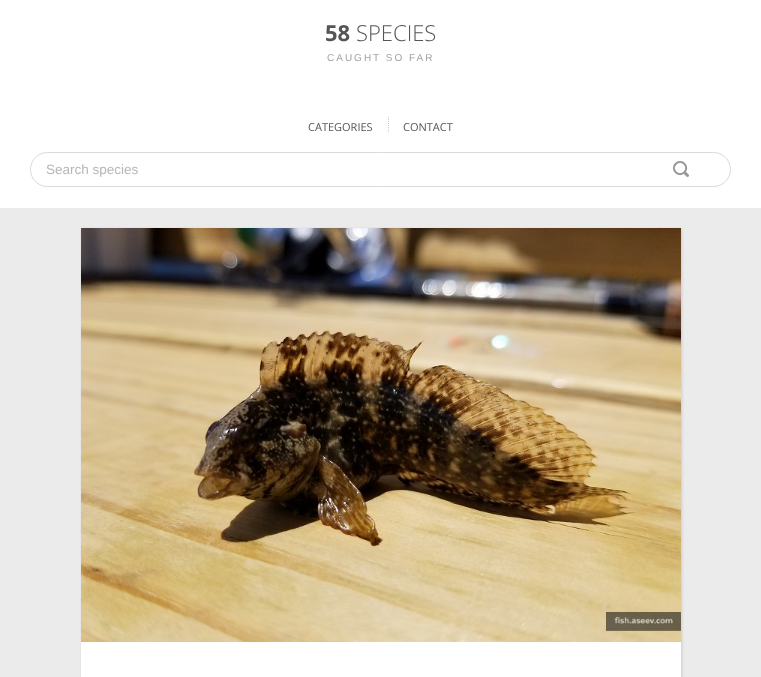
<!DOCTYPE html>
<meta charset="utf-8">
<style>body { margin: 0 } canvas { display: block }</style>
<canvas id="canvas" width="761" height="677"></canvas>
<script type="module">
  const canvas = document.getElementById("canvas");
  const ctx = canvas.getContext("2d");
  ctx.miterLimit = 4;
  ctx.fontKerning = "normal";
  async function loadImage(src) {
    const img = new Image();
    img.src = src;
    await img.decode();
    return img;
  }

  ctx.fillStyle = "#ebebeb";
  ctx.fillRect(0, 0, 761, 677);
  ctx.fillStyle = "#ffffff";
  ctx.fillRect(0, 0, 761, 208);
  ctx.font = "bold 22px Open Sans";
  ctx.fillStyle = "#555555";
  ctx.fillText("58", 325, 41);
  ctx.font = "300 22px Open Sans";
  ctx.fillText("SPECIES", 356, 41);
  ctx.letterSpacing = "2px";
  ctx.font = "10px Liberation Sans";
  ctx.fillStyle = "#a2a2a2";
  ctx.fillText("CAUGHT SO FAR", 327, 61);
  ctx.letterSpacing = "0px";
  ctx.font = "11px Open Sans";
  ctx.fillStyle = "#555555";
  ctx.fillText("CATEGORIES", 308, 131);
  ctx.beginPath();
  ctx.moveTo(388.5, 117);
  ctx.lineTo(388.5, 133);
  ctx.strokeStyle = "#cccccc";
  ctx.setLineDash([1, 1]);
  ctx.stroke();
  ctx.fillText("CONTACT", 403, 131);
  ctx.drawImage(await loadImage("img1.png"), 673, 161, 16, 16);
  ctx.beginPath();
  ctx.roundRect(30.5, 152.5, 700, 34, 17);
  ctx.strokeStyle = "#dadada";
  ctx.setLineDash([]);
  ctx.stroke();
  ctx.font = "13.5px Liberation Sans";
  ctx.fillStyle = "#b7b7b7";
  ctx.fillText("Search species", 46, 174);
  ctx.fillStyle = "#cccccc";
  ctx.filter = "blur(1.5px)";
  ctx.beginPath();
  ctx.rect(82, 229, 600, 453);
  ctx.fill();
  ctx.filter = "none";
  ctx.fillStyle = "#ffffff";
  ctx.fillRect(81, 642, 600, 35);
  ctx.drawImage(await loadImage("img2.png"), 81, 228, 600, 414);
</script>
